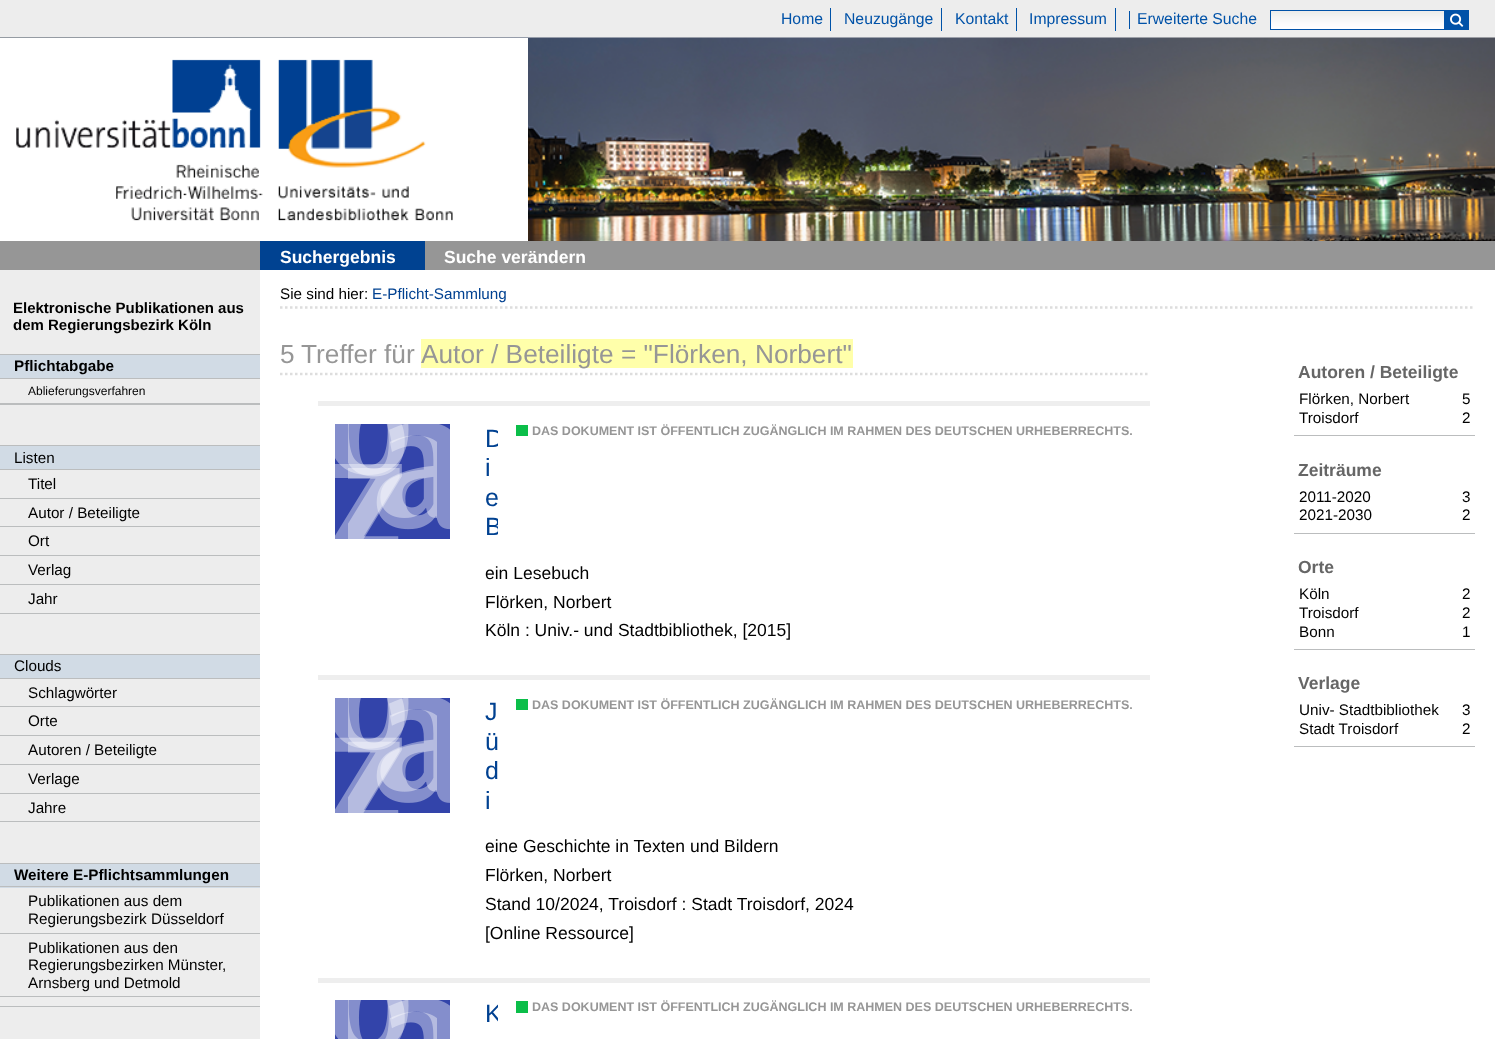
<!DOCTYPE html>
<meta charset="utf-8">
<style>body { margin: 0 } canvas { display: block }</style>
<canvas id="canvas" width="1495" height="1039"></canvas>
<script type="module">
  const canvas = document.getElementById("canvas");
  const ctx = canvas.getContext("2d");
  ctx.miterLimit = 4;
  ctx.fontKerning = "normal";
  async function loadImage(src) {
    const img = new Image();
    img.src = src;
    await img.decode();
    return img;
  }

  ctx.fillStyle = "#ffffff";
  ctx.fillRect(0, 0, 1495, 1039);
  ctx.fillStyle = "#ededed";
  ctx.fillRect(0, 0, 1495, 38);
  ctx.font = "15.75px Liberation Sans";
  ctx.fillStyle = "#0052a8";
  ctx.fillText("Home", 781, 24);
  ctx.fillRect(830, 8, 1, 23);
  ctx.fillText("Neuzugänge", 844, 24);
  ctx.fillRect(941, 8, 1, 23);
  ctx.fillText("Kontakt", 955, 24);
  ctx.fillRect(1016, 8, 1, 23);
  ctx.fillText("Impressum", 1029, 24);
  ctx.fillRect(1115, 8, 1, 23);
  ctx.fillRect(1129, 11, 1, 18);
  ctx.fillText("Erweiterte Suche", 1137, 24);
  ctx.drawImage(await loadImage("img1.png"), 1271, 11, 173, 18);
  ctx.fillRect(1270, 10, 174, 1);
  ctx.fillRect(1444, 10, 25, 19);
  ctx.fillRect(1270, 29, 199, 1);
  ctx.fillRect(1270, 10, 1, 20);
  ctx.drawImage(await loadImage("img2.png"), 1450, 13, 14, 14);
  ctx.drawImage(await loadImage("img3.png"), 0, 37, 1495, 204);
  ctx.fillStyle = "#ffffff";
  ctx.fillRect(0, 38, 528, 203);
  ctx.drawImage(await loadImage("img4.png"), 16, 59, 247, 162);
  ctx.drawImage(await loadImage("img5.png"), 278, 59, 175, 162);
  ctx.fillStyle = "#969696";
  ctx.fillRect(0, 241, 1495, 29);
  ctx.fillStyle = "#004291";
  ctx.fillRect(260, 241, 165, 29);
  ctx.font = "bold 17.5px Liberation Sans";
  ctx.fillStyle = "#ffffff";
  ctx.fillText("Suchergebnis", 280, 263);
  ctx.fillText("Suche verändern", 444, 263);
  ctx.fillStyle = "#ededed";
  ctx.fillRect(0, 270, 260, 769);
  ctx.font = "bold 15px Liberation Sans";
  ctx.fillStyle = "#000000";
  ctx.fillText("Elektronische Publikationen aus", 13, 313);
  ctx.fillText("dem Regierungsbezirk Köln", 13, 330);
  ctx.fillStyle = "#d1dbe5";
  ctx.fillRect(0, 355, 260, 23);
  ctx.fillStyle = "#bbbdbe";
  ctx.fillRect(0, 354, 260, 1);
  ctx.fillRect(0, 378, 260, 1);
  ctx.font = "bold 15.25px Liberation Sans";
  ctx.fillStyle = "#000000";
  ctx.fillText("Pflichtabgabe", 14, 371);
  ctx.fillStyle = "#bbbdbe";
  ctx.fillRect(0, 403, 260, 2);
  ctx.font = "12px Liberation Sans";
  ctx.fillStyle = "#000000";
  ctx.fillText("Ablieferungsverfahren", 28, 395);
  ctx.fillStyle = "#d1dbe5";
  ctx.fillRect(0, 446, 260, 23);
  ctx.fillStyle = "#bbbdbe";
  ctx.fillRect(0, 445, 260, 1);
  ctx.fillRect(0, 469, 260, 1);
  ctx.font = "15.25px Liberation Sans";
  ctx.fillStyle = "#000000";
  ctx.fillText("Listen", 14, 463);
  ctx.fillStyle = "#bbbdbe";
  ctx.fillRect(0, 498, 260, 1);
  ctx.fillStyle = "#000000";
  ctx.fillText("Titel", 28, 489);
  ctx.fillStyle = "#bbbdbe";
  ctx.fillRect(0, 526, 260, 1);
  ctx.fillStyle = "#000000";
  ctx.fillText("Autor / Beteiligte", 28, 518);
  ctx.fillStyle = "#bbbdbe";
  ctx.fillRect(0, 555, 260, 1);
  ctx.fillStyle = "#000000";
  ctx.fillText("Ort", 28, 546);
  ctx.fillStyle = "#bbbdbe";
  ctx.fillRect(0, 584, 260, 1);
  ctx.fillStyle = "#000000";
  ctx.fillText("Verlag", 28, 575);
  ctx.fillStyle = "#bbbdbe";
  ctx.fillRect(0, 613, 260, 1);
  ctx.fillStyle = "#000000";
  ctx.fillText("Jahr", 28, 604);
  ctx.fillStyle = "#d1dbe5";
  ctx.fillRect(0, 655, 260, 23);
  ctx.fillStyle = "#bbbdbe";
  ctx.fillRect(0, 654, 260, 1);
  ctx.fillRect(0, 678, 260, 1);
  ctx.fillStyle = "#000000";
  ctx.fillText("Clouds", 14, 671);
  ctx.fillStyle = "#bbbdbe";
  ctx.fillRect(0, 706, 260, 1);
  ctx.fillStyle = "#000000";
  ctx.fillText("Schlagwörter", 28, 698);
  ctx.fillStyle = "#bbbdbe";
  ctx.fillRect(0, 735, 260, 1);
  ctx.fillStyle = "#000000";
  ctx.fillText("Orte", 28, 726);
  ctx.fillStyle = "#bbbdbe";
  ctx.fillRect(0, 764, 260, 1);
  ctx.fillStyle = "#000000";
  ctx.fillText("Autoren / Beteiligte", 28, 755);
  ctx.fillStyle = "#bbbdbe";
  ctx.fillRect(0, 793, 260, 1);
  ctx.fillStyle = "#000000";
  ctx.fillText("Verlage", 28, 784);
  ctx.fillStyle = "#bbbdbe";
  ctx.fillRect(0, 821, 260, 1);
  ctx.fillStyle = "#000000";
  ctx.fillText("Jahre", 28, 813);
  ctx.fillStyle = "#d1dbe5";
  ctx.fillRect(0, 864, 260, 24);
  ctx.fillStyle = "#bbbdbe";
  ctx.fillRect(0, 863, 260, 1);
  ctx.fillRect(0, 886, 260, 1);
  ctx.font = "bold 15.25px Liberation Sans";
  ctx.fillStyle = "#000000";
  ctx.fillText("Weitere E-Pflichtsammlungen", 14, 880);
  ctx.fillStyle = "#bbbdbe";
  ctx.fillRect(0, 1006, 260, 1);
  ctx.fillRect(0, 933, 260, 1);
  ctx.font = "15.25px Liberation Sans";
  ctx.fillStyle = "#000000";
  ctx.fillText("Publikationen aus dem", 28, 906);
  ctx.fillText("Regierungsbezirk Düsseldorf", 28, 924);
  ctx.fillStyle = "#bbbdbe";
  ctx.fillRect(0, 996, 260, 1);
  ctx.fillStyle = "#000000";
  ctx.fillText("Publikationen aus den", 28, 953);
  ctx.fillText("Regierungsbezirken Münster,", 28, 970);
  ctx.fillText("Arnsberg und Detmold", 28, 988);
  ctx.beginPath();
  ctx.moveTo(280, 307.5);
  ctx.lineTo(1475, 307.5);
  ctx.strokeStyle = "#dddddd";
  ctx.lineWidth = 2.5;
  ctx.setLineDash([2.5, 2.5]);
  ctx.stroke();
  ctx.fillText("Sie sind hier:", 280, 299);
  ctx.fillStyle = "#004191";
  ctx.fillText("E-Pflicht-Sammlung", 372, 299);
  ctx.beginPath();
  ctx.moveTo(280, 374);
  ctx.lineTo(1150, 374);
  ctx.stroke();
  ctx.font = "26.25px Liberation Sans";
  ctx.fillStyle = "#969696";
  ctx.fillText("5", 280, 363);
  ctx.fillText("Treffer", 301, 363);
  ctx.fillText("für", 384, 363);
  ctx.fillStyle = "#ffffaa";
  ctx.fillRect(421, 339, 432, 29);
  ctx.fillStyle = "#969696";
  ctx.fillText("Autor / Beteiligte = \"Flörken, Norbert\"", 421, 363);
  ctx.fillStyle = "#eeeeee";
  ctx.fillRect(318, 401, 832, 5);
  ctx.fillStyle = "#3344aa";
  ctx.fillRect(335, 424, 115, 115);
  ctx.drawImage(await loadImage("img6.png"), 335, 424, 115, 115);
  ctx.drawImage(await loadImage("img7.png"), 348, 424, 89, 115);
  ctx.fillStyle = "#0bbe49";
  ctx.fillRect(516, 425, 12, 11);
  ctx.font = "bold 12.5px Liberation Sans";
  ctx.fillStyle = "#969696";
  ctx.fillText("DAS DOKUMENT IST ÖFFENTLICH ZUGÄNGLICH IM RAHMEN DES DEUTSCHEN URHEBERRECHTS.", 532, 435);
  ctx.save();
  ctx.beginPath();
  ctx.rect(485, 424, 13, 119);
  ctx.clip();
  ctx.font = "25px Liberation Sans";
  ctx.fillStyle = "#004191";
  ctx.fillText("D", 485, 447);
  ctx.restore();
  ctx.font = "25px Liberation Sans";
  ctx.fillStyle = "#004191";
  ctx.fillText("i", 485, 476);
  ctx.fillText("e", 485, 506);
  ctx.save();
  ctx.beginPath();
  ctx.rect(485, 424, 13, 119);
  ctx.clip();
  ctx.fillText("B", 485, 535);
  ctx.restore();
  ctx.font = "17.5px Liberation Sans";
  ctx.fillStyle = "#000000";
  ctx.fillText("ein Lesebuch", 485, 579);
  ctx.fillText("Flörken, Norbert", 485, 608);
  ctx.fillText("Köln : Univ.- und Stadtbibliothek, [2015]", 485, 636);
  ctx.fillStyle = "#eeeeee";
  ctx.fillRect(318, 675, 832, 5);
  ctx.fillStyle = "#3344aa";
  ctx.fillRect(335, 698, 115, 115);
  ctx.drawImage(await loadImage("img8.png"), 335, 698, 115, 115);
  ctx.drawImage(await loadImage("img9.png"), 348, 698, 89, 115);
  ctx.fillStyle = "#0bbe49";
  ctx.fillRect(516, 699, 12, 11);
  ctx.font = "bold 12.5px Liberation Sans";
  ctx.fillStyle = "#969696";
  ctx.fillText("DAS DOKUMENT IST ÖFFENTLICH ZUGÄNGLICH IM RAHMEN DES DEUTSCHEN URHEBERRECHTS.", 532, 709);
  ctx.font = "25px Liberation Sans";
  ctx.fillStyle = "#004191";
  ctx.fillText("J", 485, 720);
  ctx.fillText("ü", 485, 750);
  ctx.fillText("d", 485, 779);
  ctx.fillText("i", 485, 809);
  ctx.font = "17.5px Liberation Sans";
  ctx.fillStyle = "#000000";
  ctx.fillText("eine Geschichte in Texten und Bildern", 485, 852);
  ctx.fillText("Flörken, Norbert", 485, 881);
  ctx.fillText("Stand 10/2024, Troisdorf : Stadt Troisdorf, 2024", 485, 910);
  ctx.fillText("[Online Ressource]", 485, 939);
  ctx.fillStyle = "#eeeeee";
  ctx.fillRect(318, 978, 832, 5);
  ctx.fillStyle = "#3344aa";
  ctx.fillRect(335, 1000, 115, 39);
  ctx.drawImage(await loadImage("img10.png"), 335, 1000, 115, 39);
  ctx.drawImage(await loadImage("img11.png"), 348, 1000, 89, 39);
  ctx.save();
  ctx.beginPath();
  ctx.rect(485, 1000, 13, 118);
  ctx.clip();
  ctx.font = "25px Liberation Sans";
  ctx.fillStyle = "#004191";
  ctx.fillText("K", 485, 1022);
  ctx.restore();
  ctx.fillStyle = "#0bbe49";
  ctx.fillRect(516, 1001, 12, 12);
  ctx.font = "bold 12.5px Liberation Sans";
  ctx.fillStyle = "#969696";
  ctx.fillText("DAS DOKUMENT IST ÖFFENTLICH ZUGÄNGLICH IM RAHMEN DES DEUTSCHEN URHEBERRECHTS.", 532, 1011);
  ctx.font = "bold 17.5px Liberation Sans";
  ctx.fillStyle = "#666666";
  ctx.fillText("Autoren / Beteiligte", 1298, 378);
  ctx.fillStyle = "#bbbdbe";
  ctx.fillRect(1294, 435, 181, 1);
  ctx.font = "15.25px Liberation Sans";
  ctx.fillStyle = "#000000";
  ctx.fillText("Flörken, Norbert", 1299, 404);
  ctx.fillText("5", 1462, 404);
  ctx.fillText("Troisdorf", 1299, 423);
  ctx.fillText("2", 1462, 423);
  ctx.font = "bold 17.5px Liberation Sans";
  ctx.fillStyle = "#666666";
  ctx.fillText("Zeiträume", 1298, 476);
  ctx.fillStyle = "#bbbdbe";
  ctx.fillRect(1294, 533, 181, 1);
  ctx.font = "15.25px Liberation Sans";
  ctx.fillStyle = "#000000";
  ctx.fillText("2011-2020", 1299, 502);
  ctx.fillText("3", 1462, 502);
  ctx.fillText("2021-2030", 1299, 520);
  ctx.fillText("2", 1462, 520);
  ctx.font = "bold 17.5px Liberation Sans";
  ctx.fillStyle = "#666666";
  ctx.fillText("Orte", 1298, 573);
  ctx.fillStyle = "#bbbdbe";
  ctx.fillRect(1294, 649, 181, 1);
  ctx.font = "15.25px Liberation Sans";
  ctx.fillStyle = "#000000";
  ctx.fillText("Köln", 1299, 599);
  ctx.fillText("2", 1462, 599);
  ctx.fillText("Troisdorf", 1299, 618);
  ctx.fillText("2", 1462, 618);
  ctx.fillText("Bonn", 1299, 637);
  ctx.fillText("1", 1462, 637);
  ctx.font = "bold 17.5px Liberation Sans";
  ctx.fillStyle = "#666666";
  ctx.fillText("Verlage", 1298, 689);
  ctx.fillStyle = "#bbbdbe";
  ctx.fillRect(1294, 746, 181, 1);
  ctx.font = "15.25px Liberation Sans";
  ctx.fillStyle = "#000000";
  ctx.fillText("Univ- Stadtbibliothek", 1299, 715);
  ctx.fillText("3", 1462, 715);
  ctx.fillText("Stadt Troisdorf", 1299, 734);
  ctx.fillText("2", 1462, 734);
</script>
